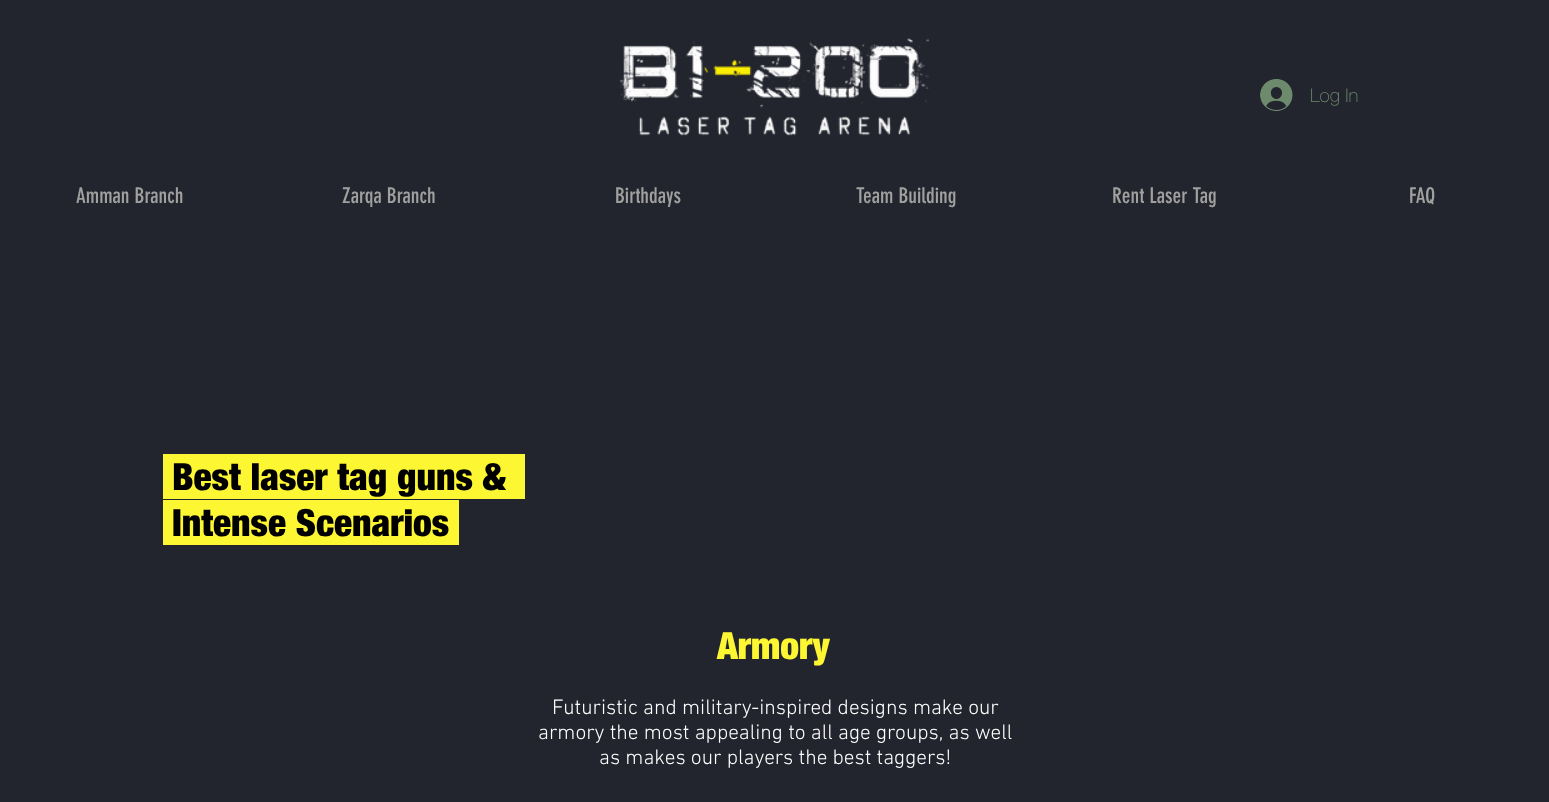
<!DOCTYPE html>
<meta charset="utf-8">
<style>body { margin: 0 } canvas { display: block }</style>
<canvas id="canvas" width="1549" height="802"></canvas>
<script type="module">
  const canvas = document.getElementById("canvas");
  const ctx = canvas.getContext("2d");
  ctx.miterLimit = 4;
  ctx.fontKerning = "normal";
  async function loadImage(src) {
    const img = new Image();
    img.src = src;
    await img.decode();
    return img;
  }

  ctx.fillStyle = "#23252e";
  ctx.fillRect(0, 0, 1549, 802);
  ctx.drawImage(await loadImage("img1.png"), 620, 38, 309, 98);
  ctx.drawImage(await loadImage("img2.png"), 1260, 79, 33, 32);
  ctx.font = "100 19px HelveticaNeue";
  ctx.fillStyle = "#6d8b6c";
  ctx.fillText("Log In", 1310, 102);
  ctx.font = "21.25px 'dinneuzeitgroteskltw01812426'";
  ctx.fillStyle = "#a0a09f";
  ctx.fillText("Amman Branch", 76, 203);
  ctx.fillText("Zarqa Branch", 342, 203);
  ctx.fillText("Birthdays", 615, 203);
  ctx.fillText("Team Building", 856, 203);
  ctx.fillText("Rent Laser Tag", 1112, 203);
  ctx.fillText("FAQ", 1409, 203);
  ctx.fillStyle = "#fdf733";
  ctx.fillRect(163, 454, 362, 45);
  ctx.font = "900 37.5px Helvetica Neue";
  ctx.fillStyle = "#000000";
  ctx.fillText("Best laser tag guns &", 172, 490);
  ctx.fillStyle = "#fdf733";
  ctx.fillRect(163, 500, 296, 45);
  ctx.fillStyle = "#000000";
  ctx.fillText("Intense Scenarios", 172, 536);
  ctx.fillStyle = "#fdf733";
  ctx.fillText("Armory", 717, 659);
  ctx.font = "300 21.25px 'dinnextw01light'";
  ctx.fillStyle = "#ffffff";
  ctx.fillText("Futuristic and military-inspired designs make our", 552, 714);
  ctx.fillText("armory the most appealing to all age groups, as well", 538, 739);
  ctx.fillText("as makes our players the best taggers!", 599, 764);
</script>
